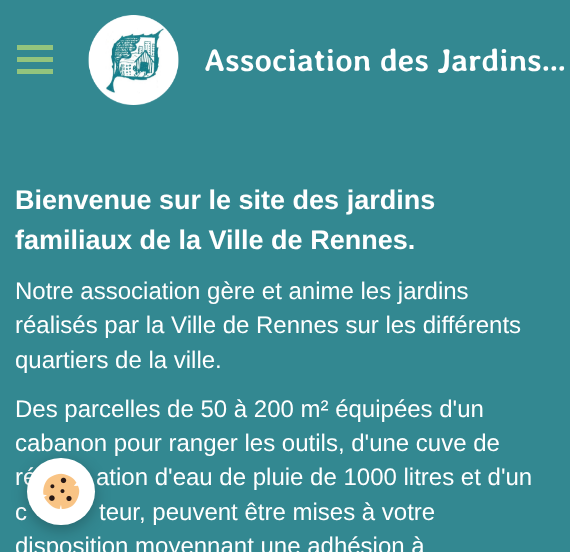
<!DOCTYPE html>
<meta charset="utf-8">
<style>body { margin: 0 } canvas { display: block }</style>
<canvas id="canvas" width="570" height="552"></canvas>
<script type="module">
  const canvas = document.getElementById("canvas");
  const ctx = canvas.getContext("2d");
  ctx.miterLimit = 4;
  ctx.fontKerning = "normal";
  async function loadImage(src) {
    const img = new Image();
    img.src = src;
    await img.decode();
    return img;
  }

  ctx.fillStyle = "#338891";
  ctx.fillRect(0, 0, 570, 552);
  ctx.fillStyle = "#93c47d";
  ctx.fillRect(17, 57, 36, 5);
  ctx.fillRect(17, 45, 36, 5);
  ctx.fillRect(17, 69, 36, 5);
  ctx.drawImage(await loadImage("img1.png"), 88, 15, 91, 90);
  ctx.font = "bold 31.5px Averia Libre";
  ctx.fillStyle = "#ffffff";
  ctx.fillText("Association des Jardins…", 204, 71);
  ctx.font = "bold 27px Liberation Sans";
  ctx.fillText("Bienvenue sur le site des jardins", 15, 209);
  ctx.fillText("familiaux de la Ville de Rennes.", 15, 249);
  ctx.font = "24px Liberation Sans";
  ctx.fillText("Notre association gère et anime les jardins", 15, 299);
  ctx.fillText("réalisés par la Ville de Rennes sur les différents", 15, 333);
  ctx.fillText("quartiers de la ville.", 15, 368);
  ctx.fillText("Des parcelles de 50 à 200 m² équipées d'un", 15, 417);
  ctx.fillText("cabanon pour ranger les outils, d'une cuve de", 15, 451);
  ctx.fillText("ré", 15, 485);
  ctx.fillText("ation d'eau de pluie de 1000 litres et d'un", 96, 485);
  ctx.fillText("c", 15, 520);
  ctx.fillText("teur, peuvent être mises à votre", 99, 520);
  ctx.fillText("disposition moyennant une adhésion à", 15, 554);
  ctx.fillStyle = "rgba(0, 0, 0, 0.24)";
  ctx.filter = "blur(7.5px)";
  ctx.beginPath();
  ctx.roundRect(27, 462, 68, 68, 34);
  ctx.fill();
  ctx.filter = "none";
  ctx.fillStyle = "#ffffff";
  ctx.beginPath();
  ctx.roundRect(27, 458, 68, 67, 33.5);
  ctx.fill();
  ctx.drawImage(await loadImage("img2.png"), 43, 473, 37, 36);
</script>
